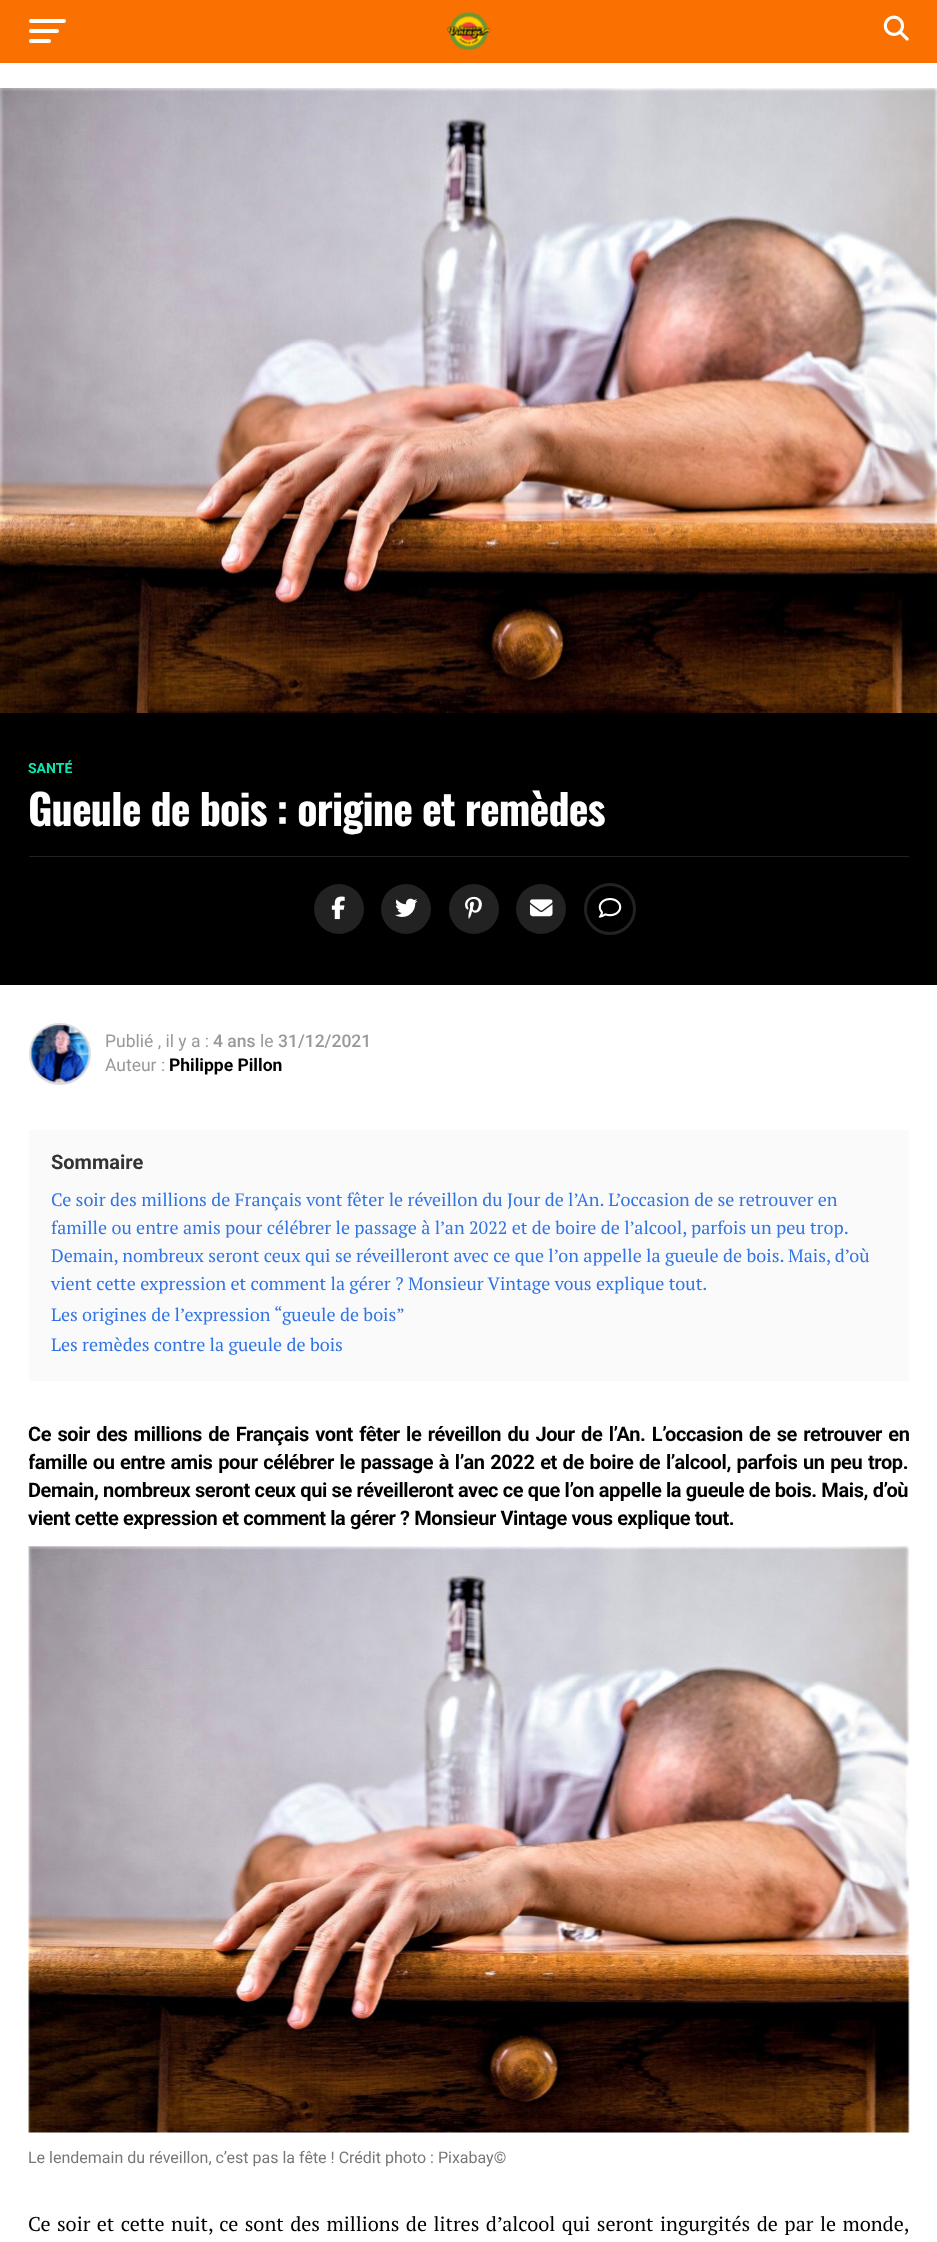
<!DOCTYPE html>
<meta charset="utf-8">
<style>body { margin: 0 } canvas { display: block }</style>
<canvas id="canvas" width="937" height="2242"></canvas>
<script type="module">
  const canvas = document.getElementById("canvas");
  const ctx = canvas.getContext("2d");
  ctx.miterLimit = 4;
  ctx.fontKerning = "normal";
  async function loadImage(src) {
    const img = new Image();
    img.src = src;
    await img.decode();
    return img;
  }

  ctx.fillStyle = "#ffffff";
  ctx.fillRect(0, 0, 937, 2242);
  ctx.fillStyle = "#fa7101";
  ctx.fillRect(0, 0, 937, 63);
  ctx.fillStyle = "#ffffff";
  ctx.beginPath();
  ctx.roundRect(29, 19, 37, 4, 2);
  ctx.fill();
  ctx.beginPath();
  ctx.roundRect(29, 29, 30, 4, 2);
  ctx.fill();
  ctx.beginPath();
  ctx.roundRect(29, 39, 22, 4, 2);
  ctx.fill();
  ctx.drawImage(await loadImage("img1.png"), 447, 12, 44, 38);
  ctx.drawImage(await loadImage("img2.png"), 883, 15, 26, 26);
  ctx.fillStyle = "#000000";
  ctx.fillRect(0, 713, 937, 272);
  ctx.drawImage(await loadImage("img3.png"), 0, 88, 937, 625);
  ctx.font = "bold 14px Roboto";
  ctx.fillStyle = "#0be6af";
  ctx.fillText("SANTÉ", 28, 773);
  ctx.letterSpacing = "-0.85px";
  ctx.font = "bold 42px Oswald";
  ctx.fillStyle = "#ffffff";
  ctx.fillText("Gueule de bois : origine et remèdes", 28, 826);
  ctx.fillStyle = "#222222";
  ctx.fillRect(29, 856, 880, 1);
  ctx.beginPath();
  ctx.arc(339, 909, 25, 0, Math.PI * 2);
  ctx.fill();
  ctx.drawImage(await loadImage("img4.png"), 331, 896, 14, 24);
  ctx.beginPath();
  ctx.arc(406, 909, 25, 0, Math.PI * 2);
  ctx.fill();
  ctx.drawImage(await loadImage("img5.png"), 395, 898, 23, 19);
  ctx.beginPath();
  ctx.arc(474, 909, 25, 0, Math.PI * 2);
  ctx.fill();
  ctx.drawImage(await loadImage("img6.png"), 465, 896, 17, 23);
  ctx.beginPath();
  ctx.arc(541, 909, 25, 0, Math.PI * 2);
  ctx.fill();
  ctx.drawImage(await loadImage("img7.png"), 530, 899, 23, 18);
  ctx.beginPath();
  ctx.arc(610, 909, 24.5, 0, Math.PI * 2);
  ctx.strokeStyle = "#222222";
  ctx.lineWidth = 3;
  ctx.stroke();
  ctx.drawImage(await loadImage("img8.png"), 598, 898, 24, 20);
  ctx.beginPath();
  ctx.arc(60, 1054, 29.5, 0, Math.PI * 2);
  ctx.strokeStyle = "#dddddd";
  ctx.stroke();
  ctx.drawImage(await loadImage("img9.png"), 30, 1024, 59, 59);
  ctx.letterSpacing = "0px";
  ctx.font = "17.5px Roboto";
  ctx.fillStyle = "#999999";
  ctx.fillText("Publié , il y a :", 105, 1047);
  ctx.font = "500 17.5px Roboto";
  ctx.fillText("4 ans", 213, 1047);
  ctx.font = "17.5px Roboto";
  ctx.fillText("le", 260, 1047);
  ctx.font = "500 17.5px Roboto";
  ctx.fillText("31/12/2021", 278, 1047);
  ctx.font = "17.5px Roboto";
  ctx.fillText("Auteur :", 105, 1071);
  ctx.font = "bold 17.5px Roboto";
  ctx.fillStyle = "#000000";
  ctx.fillText("Philippe Pillon", 169, 1071);
  ctx.fillStyle = "#fafafa";
  ctx.fillRect(29, 1130, 880, 251);
  ctx.font = "bold 20px Roboto";
  ctx.fillStyle = "#333333";
  ctx.fillText("Sommaire", 51, 1169);
  ctx.font = "18px PT Serif";
  ctx.fillStyle = "#3175e4";
  ctx.fillText("Ce soir des millions de Français vont fêter le réveillon du Jour de l’An. L’occasion de se retrouver en", 51, 1206);
  ctx.fillText("famille ou entre amis pour célébrer le passage à l’an 2022 et de boire de l’alcool, parfois un peu trop.", 51, 1234);
  ctx.fillText("Demain, nombreux seront ceux qui se réveilleront avec ce que l’on appelle la gueule de bois. Mais, d’où", 51, 1262);
  ctx.fillText("vient cette expression et comment la gérer ? Monsieur Vintage vous explique tout.", 51, 1290);
  ctx.fillText("Les origines de l’expression “gueule de bois”", 51, 1321);
  ctx.fillText("Les remèdes contre la gueule de bois", 51, 1351);
  ctx.letterSpacing = "-0.4px";
  ctx.wordSpacing = "1.75px";
  ctx.font = "bold 20px Roboto";
  ctx.fillStyle = "#000000";
  ctx.fillText("Ce soir des millions de Français vont fêter le réveillon du Jour de l’An. L’occasion de se retrouver en", 28, 1441);
  ctx.save();
  ctx.beginPath();
  ctx.rect(29, 1421, 880, 113);
  ctx.clip();
  ctx.wordSpacing = "1.1px";
  ctx.fillText("famille ou entre amis pour célébrer le passage à l’an 2022 et de boire de l’alcool, parfois un peu trop.", 28, 1469);
  ctx.restore();
  ctx.wordSpacing = "0.1px";
  ctx.fillText("Demain, nombreux seront ceux qui se réveilleront avec ce que l’on appelle la gueule de bois. Mais, d’où", 28, 1497);
  ctx.wordSpacing = "0px";
  ctx.fillText("vient cette expression et comment la gérer ? Monsieur Vintage vous explique tout.", 28, 1525);
  ctx.drawImage(await loadImage("img10.png"), 28, 1546, 882, 587);
  ctx.letterSpacing = "0px";
  ctx.font = "16px Roboto";
  ctx.fillStyle = "#777777";
  ctx.fillText("Le lendemain du réveillon, c’est pas la fête ! Crédit photo : Pixabay©", 28, 2163);
  ctx.wordSpacing = "1.6px";
  ctx.font = "20px PT Serif";
  ctx.fillStyle = "#000000";
  ctx.fillText("Ce soir et cette nuit, ce sont des millions de litres d’alcool qui seront ingurgités de par le monde,", 28, 2231);
</script>
